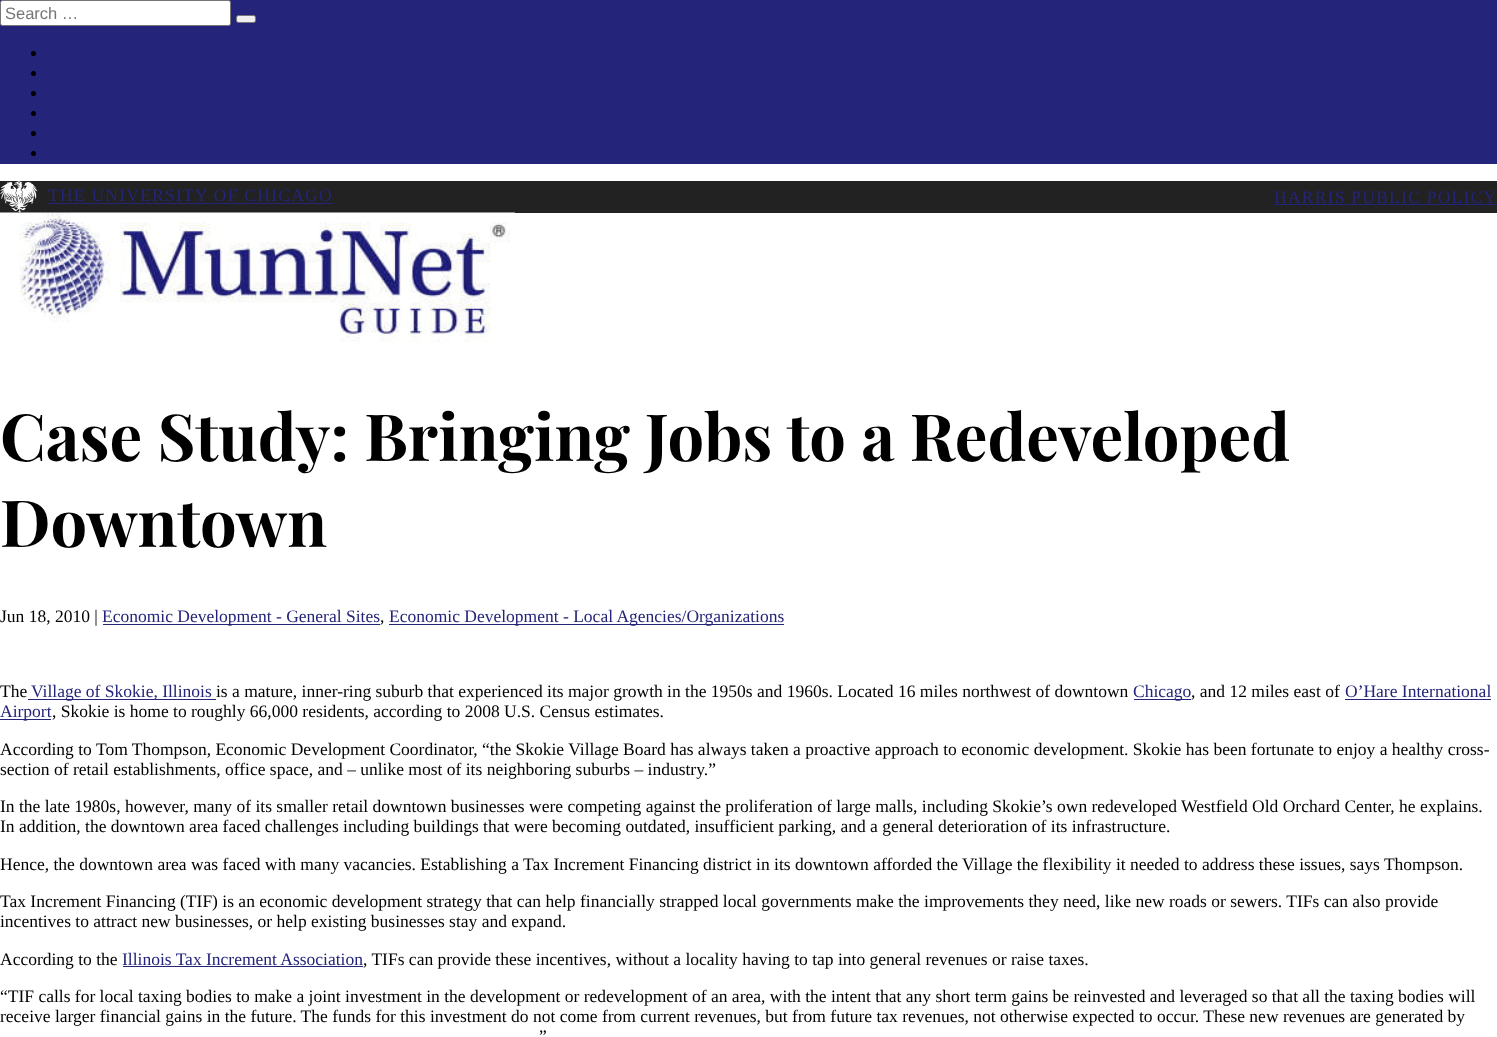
<!DOCTYPE html>
<meta charset="utf-8">
<style>body { margin: 0 } canvas { display: block }</style>
<canvas id="canvas" width="1497" height="1037"></canvas>
<script type="module">
  const canvas = document.getElementById("canvas");
  const ctx = canvas.getContext("2d");
  ctx.miterLimit = 4;
  ctx.fontKerning = "normal";
  async function loadImage(src) {
    const img = new Image();
    img.src = src;
    await img.decode();
    return img;
  }

  ctx.fillStyle = "#ffffff";
  ctx.fillRect(0, 0, 1497, 1037);
  ctx.fillStyle = "#24247a";
  ctx.fillRect(0, 0, 1497, 164);
  ctx.fillStyle = "#ffffff";
  ctx.beginPath();
  ctx.roundRect(0.5, 0.5, 230, 25, 2);
  ctx.fill();
  ctx.strokeStyle = "#767676";
  ctx.stroke();
  ctx.font = "16.5px Liberation Sans";
  ctx.fillStyle = "#757575";
  ctx.fillText("Search …", 5, 19);
  ctx.fillStyle = "#efefef";
  ctx.beginPath();
  ctx.roundRect(236.5, 15.5, 19, 7, 2);
  ctx.fill();
  ctx.stroke();
  ctx.fillStyle = "#000000";
  ctx.beginPath();
  ctx.arc(33.5, 53.5, 2.5, 0, Math.PI * 2);
  ctx.fill();
  ctx.beginPath();
  ctx.arc(33.5, 73.5, 2.5, 0, Math.PI * 2);
  ctx.fill();
  ctx.beginPath();
  ctx.arc(33.5, 93.5, 2.5, 0, Math.PI * 2);
  ctx.fill();
  ctx.beginPath();
  ctx.arc(33.5, 113.5, 2.5, 0, Math.PI * 2);
  ctx.fill();
  ctx.beginPath();
  ctx.arc(33.5, 133.5, 2.5, 0, Math.PI * 2);
  ctx.fill();
  ctx.beginPath();
  ctx.arc(33.5, 153.5, 2.5, 0, Math.PI * 2);
  ctx.fill();
  ctx.fillStyle = "#222222";
  ctx.fillRect(0, 181, 1497, 32);
  ctx.drawImage(await loadImage("img1.png"), 0, 181, 38, 32);
  ctx.letterSpacing = "1.25px";
  ctx.font = "17.5px Liberation Serif";
  ctx.fillStyle = "#24247a";
  ctx.fillText("THE UNIVERSITY OF CHICAGO", 48, 201);
  ctx.fillRect(48, 203, 285, 1);
  ctx.fillText("HARRIS PUBLIC POLICY", 1274, 203);
  ctx.fillRect(1274, 204, 223, 1);
  ctx.drawImage(await loadImage("img2.png"), 0, 212, 515, 131);
  ctx.letterSpacing = "0px";
  ctx.font = "bold 65px Playfair Display";
  ctx.fillStyle = "#000000";
  ctx.fillText("Case Study: Bringing Jobs to a Redeveloped", 0, 461);
  ctx.fillText("Downtown", 0, 547);
  ctx.font = "17.5px Liberation Serif";
  ctx.fillText("Jun 18, 2010 |", 0, 622);
  ctx.fillStyle = "#252679";
  ctx.fillRect(103, 624, 277, 1);
  ctx.fillStyle = "#24247a";
  ctx.fillText("Economic Development - General Sites", 102, 622);
  ctx.fillStyle = "#000000";
  ctx.fillText(",", 380, 622);
  ctx.fillStyle = "#252679";
  ctx.fillRect(389, 624, 395, 1);
  ctx.fillStyle = "#24247a";
  ctx.fillText("Economic Development - Local Agencies/Organizations", 389, 622);
  ctx.fillStyle = "#000000";
  ctx.fillText("The", 0, 697);
  ctx.fillStyle = "#24247a";
  ctx.fillRect(28, 699, 188, 1);
  ctx.fillText("Village of Skokie, Illinois", 31, 697);
  ctx.fillStyle = "#000000";
  ctx.fillText("is a mature, inner-ring suburb that experienced its major growth in the 1950s and 1960s. Located 16 miles northwest of downtown", 216, 697);
  ctx.fillStyle = "#24247a";
  ctx.fillRect(1134, 699, 57, 1);
  ctx.fillText("Chicago", 1133, 697);
  ctx.fillStyle = "#000000";
  ctx.fillText(", and 12 miles east of", 1191, 697);
  ctx.fillStyle = "#24247a";
  ctx.fillText("O’Hare International", 1345, 697);
  ctx.fillRect(1345, 699, 146, 1);
  ctx.fillRect(0, 719, 51, 1);
  ctx.fillText("Airport", 0, 717);
  ctx.fillStyle = "#000000";
  ctx.fillText(", Skokie is home to roughly 66,000 residents, according to 2008 U.S. Census estimates.", 52, 717);
  ctx.fillText("According to Tom Thompson, Economic Development Coordinator, “the Skokie Village Board has always taken a proactive approach to economic development. Skokie has been fortunate to enjoy a healthy cross-", 0, 755);
  ctx.fillText("section of retail establishments, office space, and – unlike most of its neighboring suburbs – industry.”", 0, 775);
  ctx.fillText("In the late 1980s, however, many of its smaller retail downtown businesses were competing against the proliferation of large malls, including Skokie’s own redeveloped Westfield Old Orchard Center, he explains.", 0, 812);
  ctx.fillText("In addition, the downtown area faced challenges including buildings that were becoming outdated, insufficient parking, and a general deterioration of its infrastructure.", 0, 832);
  ctx.fillText("Hence, the downtown area was faced with many vacancies. Establishing a Tax Increment Financing district in its downtown afforded the Village the flexibility it needed to address these issues, says Thompson.", 0, 870);
  ctx.fillText("Tax Increment Financing (TIF) is an economic development strategy that can help financially strapped local governments make the improvements they need, like new roads or sewers. TIFs can also provide", 0, 907);
  ctx.fillText("incentives to attract new businesses, or help existing businesses stay and expand.", 0, 927);
  ctx.fillText("According to the", 0, 965);
  ctx.fillStyle = "#24247a";
  ctx.fillText("Illinois Tax Increment Association", 122, 965);
  ctx.fillRect(123, 966, 240, 1);
  ctx.fillStyle = "#000000";
  ctx.fillText(", TIFs can provide these incentives, without a locality having to tap into general revenues or raise taxes.", 363, 965);
  ctx.fillText("“TIF calls for local taxing bodies to make a joint investment in the development or redevelopment of an area, with the intent that any short term gains be reinvested and leveraged so that all the taxing bodies will", 0, 1002);
  ctx.fillText("receive larger financial gains in the future. The funds for this investment do not come from current revenues, but from future tax revenues, not otherwise expected to occur. These new revenues are generated by", 0, 1022);
  ctx.fillText("”", 539, 1042);
</script>
